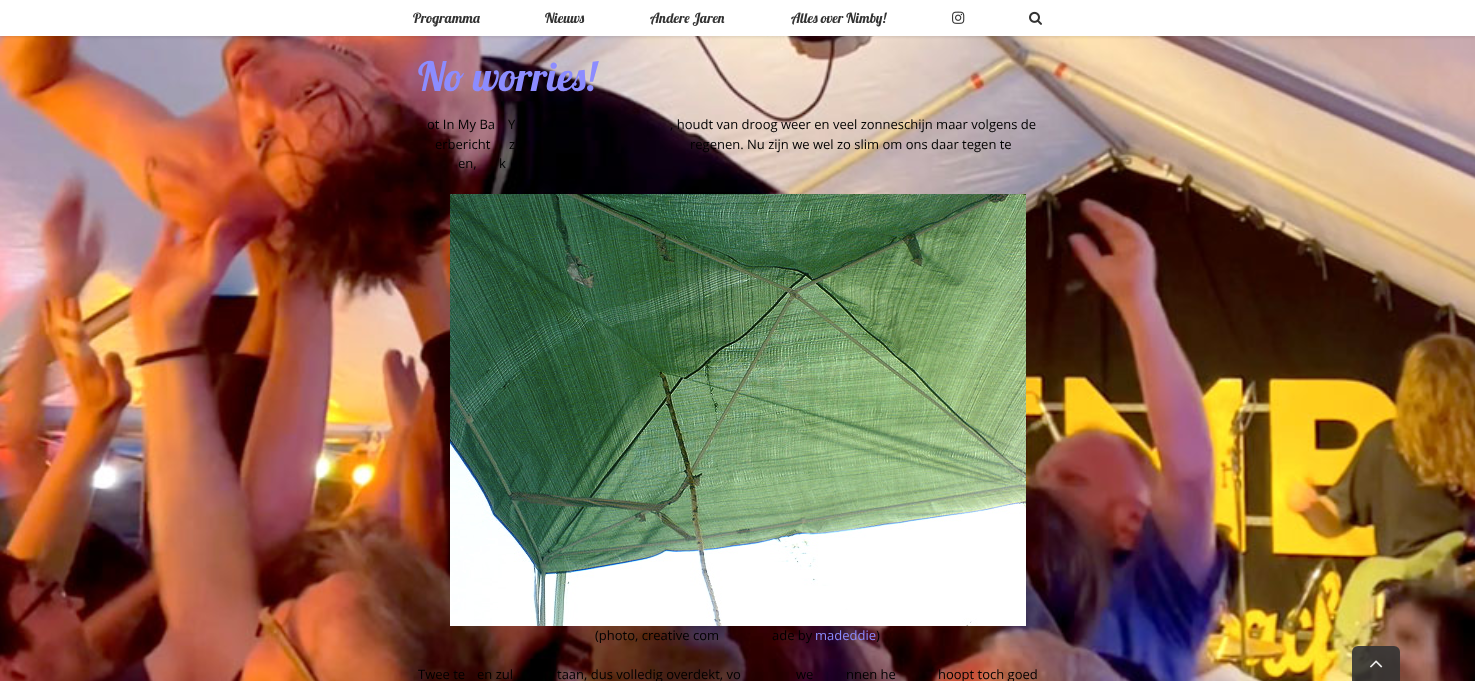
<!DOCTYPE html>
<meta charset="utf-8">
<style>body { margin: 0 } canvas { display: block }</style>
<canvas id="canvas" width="1475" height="681"></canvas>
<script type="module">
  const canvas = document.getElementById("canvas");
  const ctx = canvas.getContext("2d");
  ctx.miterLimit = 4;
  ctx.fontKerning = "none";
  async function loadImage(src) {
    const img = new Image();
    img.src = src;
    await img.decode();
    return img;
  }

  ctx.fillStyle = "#ffffff";
  ctx.fillRect(0, 0, 1475, 681);
  ctx.drawImage(await loadImage("img3.png"), 0, 36, 1475, 645);
  ctx.fillStyle = "rgba(0, 0, 0, 0.12)";
  ctx.filter = "blur(1.5px)";
  ctx.beginPath();
  ctx.rect(0, 1, 1475, 36);
  ctx.fill();
  ctx.filter = "none";
  ctx.fillStyle = "#ffffff";
  ctx.fillRect(0, 0, 1475, 36);
  ctx.font = "14px Lobster";
  ctx.fillStyle = "#333333";
  ctx.fillText("Programma", 413, 23);
  ctx.fillText("Nieuws", 545, 23);
  ctx.fillText("Andere Jaren", 650, 23);
  ctx.fillText("Alles over Nimby!", 791, 23);
  ctx.drawImage(await loadImage("img1.png"), 952, 11, 13, 13);
  ctx.drawImage(await loadImage("img2.png"), 1029, 11, 13, 14);
  ctx.font = "40px Lobster";
  ctx.fillStyle = "#8c8cff";
  ctx.fillText("No worries!", 418, 91);
  ctx.font = "13px Open Sans";
  ctx.fillStyle = "#000000";
  ctx.fillText("ot In My Ba", 427, 129);
  ctx.fillText("Y", 508, 129);
  ctx.fillText(", houdt van droog weer en veel zonneschijn maar volgens de", 670, 129);
  ctx.fillText("erbericht", 435, 149);
  ctx.fillText("z", 509, 149);
  ctx.fillText("regenen. Nu zijn we wel zo slim om ons daar tegen te", 690, 149);
  ctx.fillText("en,", 458, 168);
  ctx.fillText("k", 499, 168);
  ctx.drawImage(await loadImage("img4.png"), 450, 194, 576, 432);
  ctx.fillText("(photo, creative com", 595, 640);
  ctx.fillText("ade by", 772, 640);
  ctx.fillStyle = "#8c8cff";
  ctx.fillText("madeddie", 815, 640);
  ctx.fillStyle = "#000000";
  ctx.fillText(")", 876, 640);
  ctx.fillText("Twee te", 418, 679);
  ctx.fillText("en zul", 477, 679);
  ctx.fillText("taan, dus volledig overdekt, vo", 557, 679);
  ctx.fillText("we", 796, 679);
  ctx.fillText("nnen he", 846, 679);
  ctx.fillText("hoopt toch goed", 938, 679);
  ctx.fillStyle = "rgba(51, 51, 51, 0.9)";
  ctx.beginPath();
  ctx.roundRect(1352, 646, 48, 35, [6, 6, 0, 0]);
  ctx.fill();
  ctx.drawImage(await loadImage("img5.png"), 1370, 660, 13, 8);
</script>
